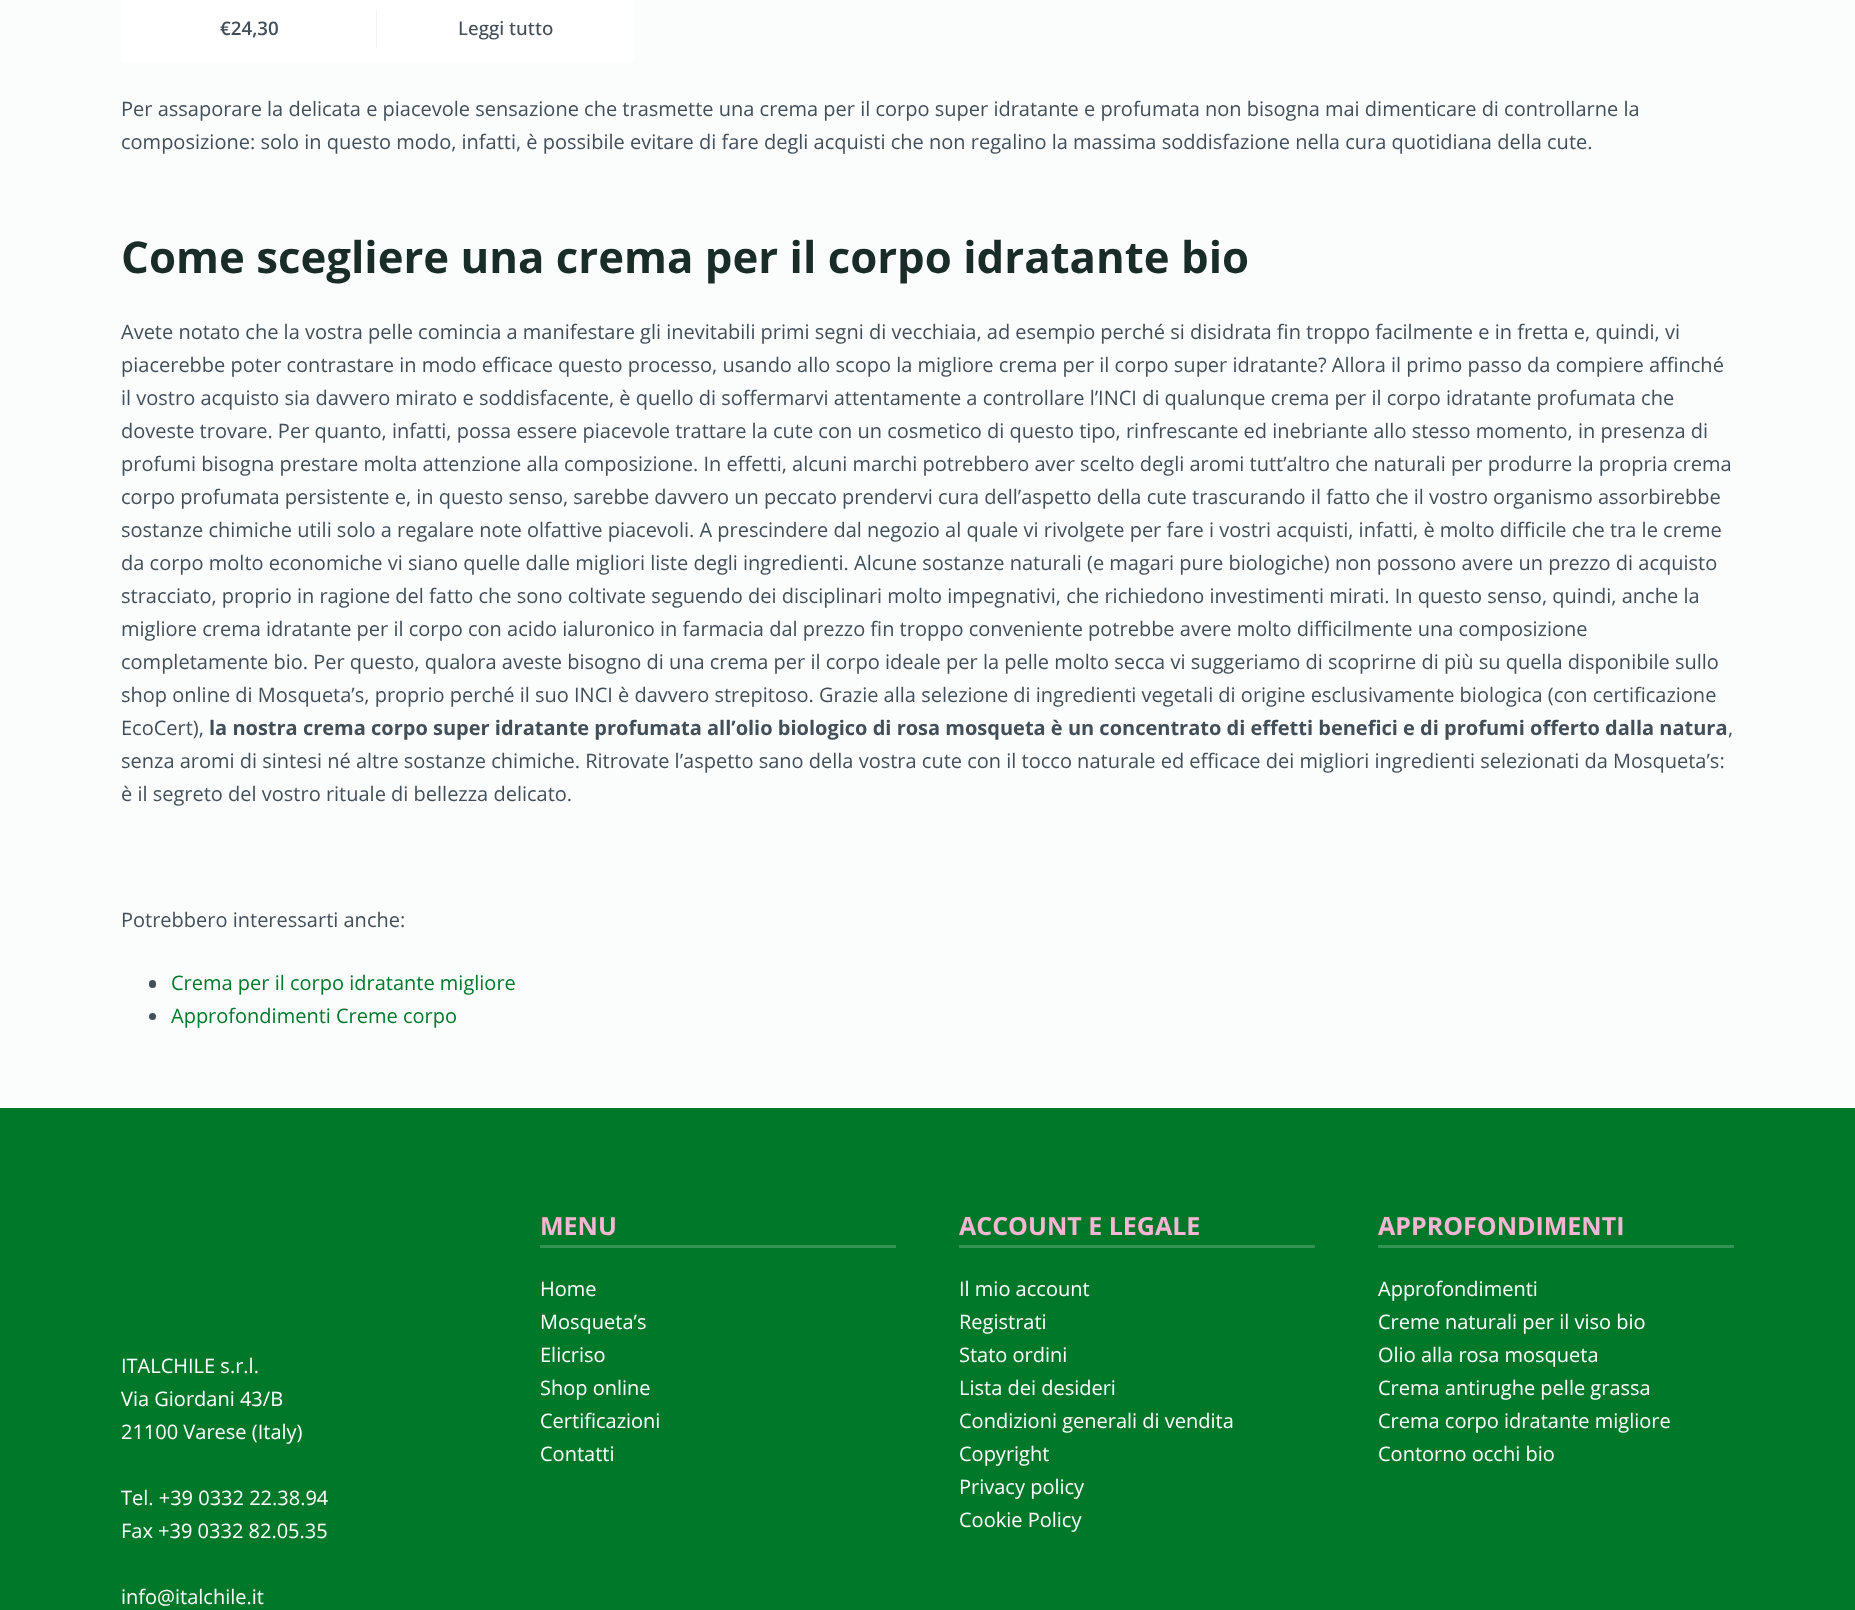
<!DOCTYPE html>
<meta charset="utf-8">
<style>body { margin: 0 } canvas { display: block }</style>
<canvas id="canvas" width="1855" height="1610"></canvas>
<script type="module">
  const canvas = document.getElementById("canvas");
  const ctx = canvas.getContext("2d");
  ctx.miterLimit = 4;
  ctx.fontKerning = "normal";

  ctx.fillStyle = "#fbfcfc";
  ctx.fillRect(0, 0, 1855, 1610);
  ctx.fillStyle = "#ffffff";
  ctx.beginPath();
  ctx.roundRect(121, -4, 513, 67, 4);
  ctx.fill();
  ctx.font = "600 18.75px Open Sans";
  ctx.fillStyle = "#434f58";
  ctx.fillText("€24,30", 220, 35);
  ctx.fillStyle = "#f2f2f2";
  ctx.fillRect(376, 10, 1, 38);
  ctx.font = "500 18.75px Open Sans";
  ctx.fillStyle = "#434f58";
  ctx.fillText("Leggi tutto", 458, 35);
  ctx.font = "20px Open Sans";
  ctx.fillText("Per assaporare la delicata e piacevole sensazione che trasmette una crema per il corpo super idratante e profumata non bisogna mai dimenticare di controllarne la", 121, 116);
  ctx.fillText("composizione: solo in questo modo, infatti, è possibile evitare di fare degli acquisti che non regalino la massima soddisfazione nella cura quotidiana della cute.", 121, 149);
  ctx.font = "bold 43.75px Open Sans";
  ctx.fillStyle = "#192c27";
  ctx.fillText("Come scegliere una crema per il corpo idratante bio", 121, 273);
  ctx.font = "20px Open Sans";
  ctx.fillStyle = "#434f58";
  ctx.fillText("Avete notato che la vostra pelle comincia a manifestare gli inevitabili primi segni di vecchiaia, ad esempio perché si disidrata fin troppo facilmente e in fretta e, quindi, vi", 121, 339);
  ctx.fillText("piacerebbe poter contrastare in modo efficace questo processo, usando allo scopo la migliore crema per il corpo super idratante? Allora il primo passo da compiere affinché", 121, 372);
  ctx.fillText("il vostro acquisto sia davvero mirato e soddisfacente, è quello di soffermarvi attentamente a controllare l’INCI di qualunque crema per il corpo idratante profumata che", 121, 405);
  ctx.fillText("doveste trovare. Per quanto, infatti, possa essere piacevole trattare la cute con un cosmetico di questo tipo, rinfrescante ed inebriante allo stesso momento, in presenza di", 121, 438);
  ctx.fillText("profumi bisogna prestare molta attenzione alla composizione. In effetti, alcuni marchi potrebbero aver scelto degli aromi tutt’altro che naturali per produrre la propria crema", 121, 471);
  ctx.fillText("corpo profumata persistente e, in questo senso, sarebbe davvero un peccato prendervi cura dell’aspetto della cute trascurando il fatto che il vostro organismo assorbirebbe", 121, 504);
  ctx.fillText("sostanze chimiche utili solo a regalare note olfattive piacevoli. A prescindere dal negozio al quale vi rivolgete per fare i vostri acquisti, infatti, è molto difficile che tra le creme", 121, 537);
  ctx.fillText("da corpo molto economiche vi siano quelle dalle migliori liste degli ingredienti. Alcune sostanze naturali (e magari pure biologiche) non possono avere un prezzo di acquisto", 121, 570);
  ctx.fillText("stracciato, proprio in ragione del fatto che sono coltivate seguendo dei disciplinari molto impegnativi, che richiedono investimenti mirati. In questo senso, quindi, anche la", 121, 603);
  ctx.fillText("migliore crema idratante per il corpo con acido ialuronico in farmacia dal prezzo fin troppo conveniente potrebbe avere molto difficilmente una composizione", 121, 636);
  ctx.fillText("completamente bio. Per questo, qualora aveste bisogno di una crema per il corpo ideale per la pelle molto secca vi suggeriamo di scoprirne di più su quella disponibile sullo", 121, 669);
  ctx.fillText("shop online di Mosqueta’s, proprio perché il suo INCI è davvero strepitoso. Grazie alla selezione di ingredienti vegetali di origine esclusivamente biologica (con certificazione", 121, 702);
  ctx.fillText("EcoCert),", 121, 735);
  ctx.font = "bold 20px Open Sans";
  ctx.fillText("la nostra crema corpo super idratante profumata all’olio biologico di rosa mosqueta è un concentrato di effetti benefici e di profumi offerto dalla natura", 209, 735);
  ctx.font = "20px Open Sans";
  ctx.fillText(",", 1728, 735);
  ctx.fillText("senza aromi di sintesi né altre sostanze chimiche. Ritrovate l’aspetto sano della vostra cute con il tocco naturale ed efficace dei migliori ingredienti selezionati da Mosqueta’s:", 121, 768);
  ctx.fillText("è il segreto del vostro rituale di bellezza delicato.", 121, 801);
  ctx.fillText("Potrebbero interessarti anche:", 121, 927);
  ctx.beginPath();
  ctx.roundRect(149, 980, 7, 8, 3.5);
  ctx.fill();
  ctx.fillStyle = "#00782a";
  ctx.fillText("Crema per il corpo idratante migliore", 171, 990);
  ctx.fillStyle = "#434f58";
  ctx.beginPath();
  ctx.arc(152.5, 1016.5, 3.5, 0, Math.PI * 2);
  ctx.fill();
  ctx.fillStyle = "#00782a";
  ctx.fillText("Approfondimenti Creme corpo", 171, 1023);
  ctx.fillStyle = "#007829";
  ctx.fillRect(0, 1108, 1855, 502);
  ctx.fillStyle = "#ffffff";
  ctx.fillText("ITALCHILE s.r.l.", 121, 1373);
  ctx.fillText("Via Giordani 43/B", 121, 1406);
  ctx.fillText("21100 Varese (Italy)", 121, 1439);
  ctx.fillText("Tel. +39 0332 22.38.94", 121, 1505);
  ctx.fillText("Fax +39 0332 82.05.35", 121, 1538);
  ctx.fillText("info@italchile.it", 121, 1604);
  ctx.fillStyle = "#339354";
  ctx.fillRect(540, 1245, 356, 3);
  ctx.font = "bold 25px Open Sans";
  ctx.fillStyle = "#f6b5d3";
  ctx.fillText("MENU", 540, 1235);
  ctx.font = "20px Open Sans";
  ctx.fillStyle = "#ffffff";
  ctx.fillText("Home", 540, 1296);
  ctx.fillText("Mosqueta’s", 540, 1329);
  ctx.fillText("Elicriso", 540, 1362);
  ctx.fillText("Shop online", 540, 1395);
  ctx.fillText("Certificazioni", 540, 1428);
  ctx.fillText("Contatti", 540, 1461);
  ctx.fillStyle = "#339354";
  ctx.fillRect(959, 1245, 356, 3);
  ctx.font = "bold 25px Open Sans";
  ctx.fillStyle = "#f6b5d3";
  ctx.fillText("ACCOUNT E LEGALE", 959, 1235);
  ctx.font = "20px Open Sans";
  ctx.fillStyle = "#ffffff";
  ctx.fillText("Il mio account", 959, 1296);
  ctx.fillText("Registrati", 959, 1329);
  ctx.fillText("Stato ordini", 959, 1362);
  ctx.fillText("Lista dei desideri", 959, 1395);
  ctx.fillText("Condizioni generali di vendita", 959, 1428);
  ctx.fillText("Copyright", 959, 1461);
  ctx.fillText("Privacy policy", 959, 1494);
  ctx.fillText("Cookie Policy", 959, 1527);
  ctx.fillStyle = "#339354";
  ctx.fillRect(1378, 1245, 356, 3);
  ctx.font = "bold 25px Open Sans";
  ctx.fillStyle = "#f6b5d3";
  ctx.fillText("APPROFONDIMENTI", 1378, 1235);
  ctx.font = "20px Open Sans";
  ctx.fillStyle = "#ffffff";
  ctx.fillText("Approfondimenti", 1378, 1296);
  ctx.fillText("Creme naturali per il viso bio", 1378, 1329);
  ctx.fillText("Olio alla rosa mosqueta", 1378, 1362);
  ctx.fillText("Crema antirughe pelle grassa", 1378, 1395);
  ctx.fillText("Crema corpo idratante migliore", 1378, 1428);
  ctx.fillText("Contorno occhi bio", 1378, 1461);
</script>
